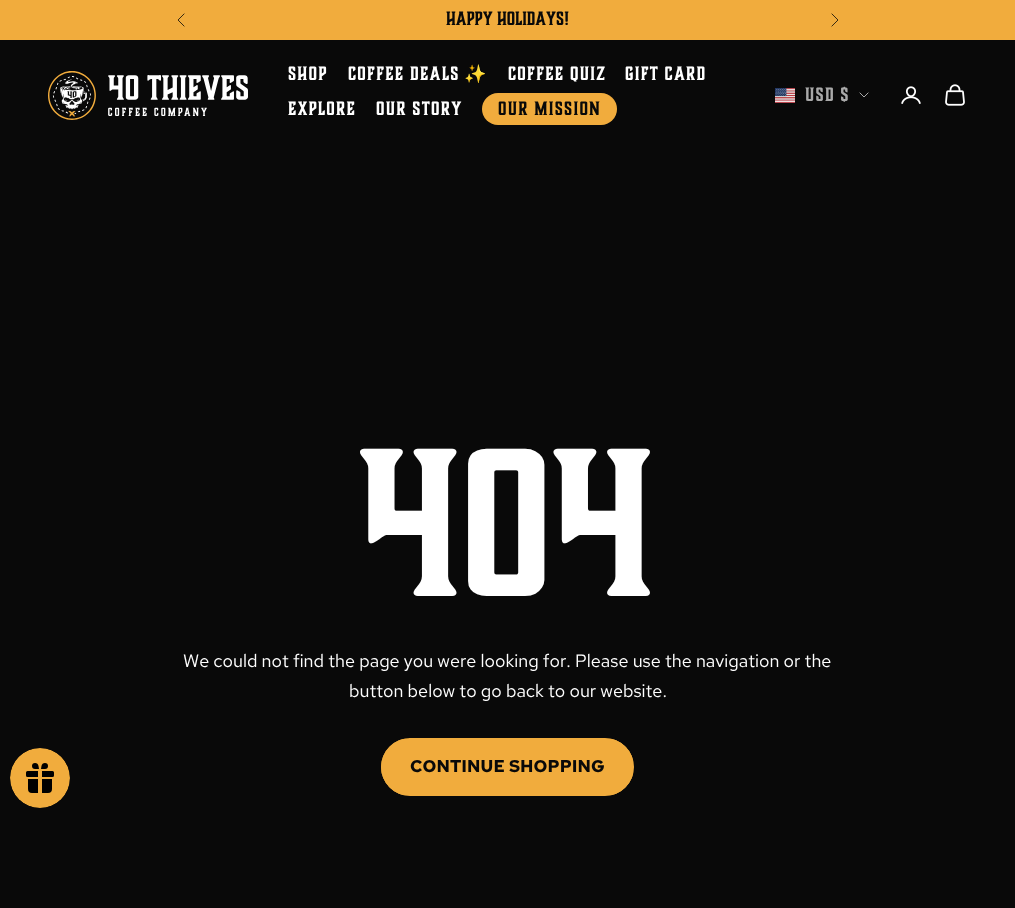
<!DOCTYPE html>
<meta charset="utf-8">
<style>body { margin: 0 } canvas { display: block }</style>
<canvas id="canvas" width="1015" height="908"></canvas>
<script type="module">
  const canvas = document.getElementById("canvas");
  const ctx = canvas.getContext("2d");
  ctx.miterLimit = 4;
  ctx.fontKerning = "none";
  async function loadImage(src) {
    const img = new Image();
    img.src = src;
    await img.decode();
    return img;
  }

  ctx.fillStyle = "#090909";
  ctx.fillRect(0, 0, 1015, 908);
  ctx.fillStyle = "#f1ac3d";
  ctx.fillRect(0, 0, 1015, 40);
  ctx.beginPath();
  ctx.moveTo(184, 14);
  ctx.lineTo(178, 20);
  ctx.lineTo(184, 26);
  ctx.strokeStyle = "#090909";
  ctx.lineWidth = 0.8;
  ctx.lineCap = "square";
  ctx.stroke();
  ctx.font = "bold 17.75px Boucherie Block";
  ctx.fillStyle = "#090909";
  ctx.fillText("HAPPY HOLIDAYS!", 446, 25);
  ctx.beginPath();
  ctx.moveTo(832, 26);
  ctx.lineTo(838, 20);
  ctx.lineTo(832, 14);
  ctx.stroke();
  ctx.drawImage(await loadImage("img1.png"), 48, 71, 200, 49);
  ctx.letterSpacing = "1.25px";
  ctx.font = "bold 18px Boucherie Block";
  ctx.fillStyle = "#ffffff";
  ctx.fillText("SHOP", 288, 80);
  ctx.fillText("COFFEE DEALS", 348, 80);
  ctx.font = "bold 18px Noto Color Emoji";
  ctx.fillText("✨", 464, 80);
  ctx.font = "bold 18px Boucherie Block";
  ctx.fillText("COFFEE QUIZ", 508, 80);
  ctx.fillText("GIFT CARD", 625, 80);
  ctx.fillText("EXPLORE", 288, 115);
  ctx.fillText("OUR STORY", 376, 115);
  ctx.fillStyle = "#f1ac3d";
  ctx.beginPath();
  ctx.roundRect(482, 93, 135, 32, 16);
  ctx.fill();
  ctx.fillStyle = "#090909";
  ctx.fillText("OUR MISSION", 498, 115);
  ctx.drawImage(await loadImage("img2.png"), 775, 88, 20, 15);
  ctx.fillStyle = "#a9a9a9";
  ctx.fillText("USD $", 805, 101);
  ctx.beginPath();
  ctx.moveTo(860, 93);
  ctx.lineTo(864, 97);
  ctx.lineTo(868, 93);
  ctx.strokeStyle = "#a9a9a9";
  ctx.lineWidth = 1;
  ctx.stroke();
  ctx.drawImage(await loadImage("img3.png"), 901, 86, 20, 18);
  ctx.drawImage(await loadImage("img4.png"), 945, 84, 20, 22);
  ctx.drawImage(await loadImage("img5.png"), 10, 748, 60, 60);
  ctx.letterSpacing = "0px";
  ctx.font = "bold 195px Boucherie Block";
  ctx.fillStyle = "#ffffff";
  ctx.fillText("404", 358, 596);
  ctx.font = "18px Red Hat Text";
  ctx.fillText("We could not find the page you were looking for.", 183, 667);
  ctx.fillText("Please use the navigation or the", 575, 667);
  ctx.fillText("button below to go back to our website.", 349, 697);
  ctx.save();
  ctx.beginPath();
  ctx.roundRect(381, 738, 253, 58, 29);
  ctx.clip();
  ctx.fillStyle = "#f1ac3d";
  ctx.fillRect(381, 739, 252, 56);
  ctx.restore();
  ctx.beginPath();
  ctx.roundRect(381.5, 738.5, 252, 57, 28.5);
  ctx.strokeStyle = "#f1ac3d";
  ctx.stroke();
  ctx.letterSpacing = "0.2px";
  ctx.font = "bold 17px Red Hat Text";
  ctx.fillStyle = "#090909";
  ctx.fillText("CONTINUE SHOPPING", 410, 772);
</script>
